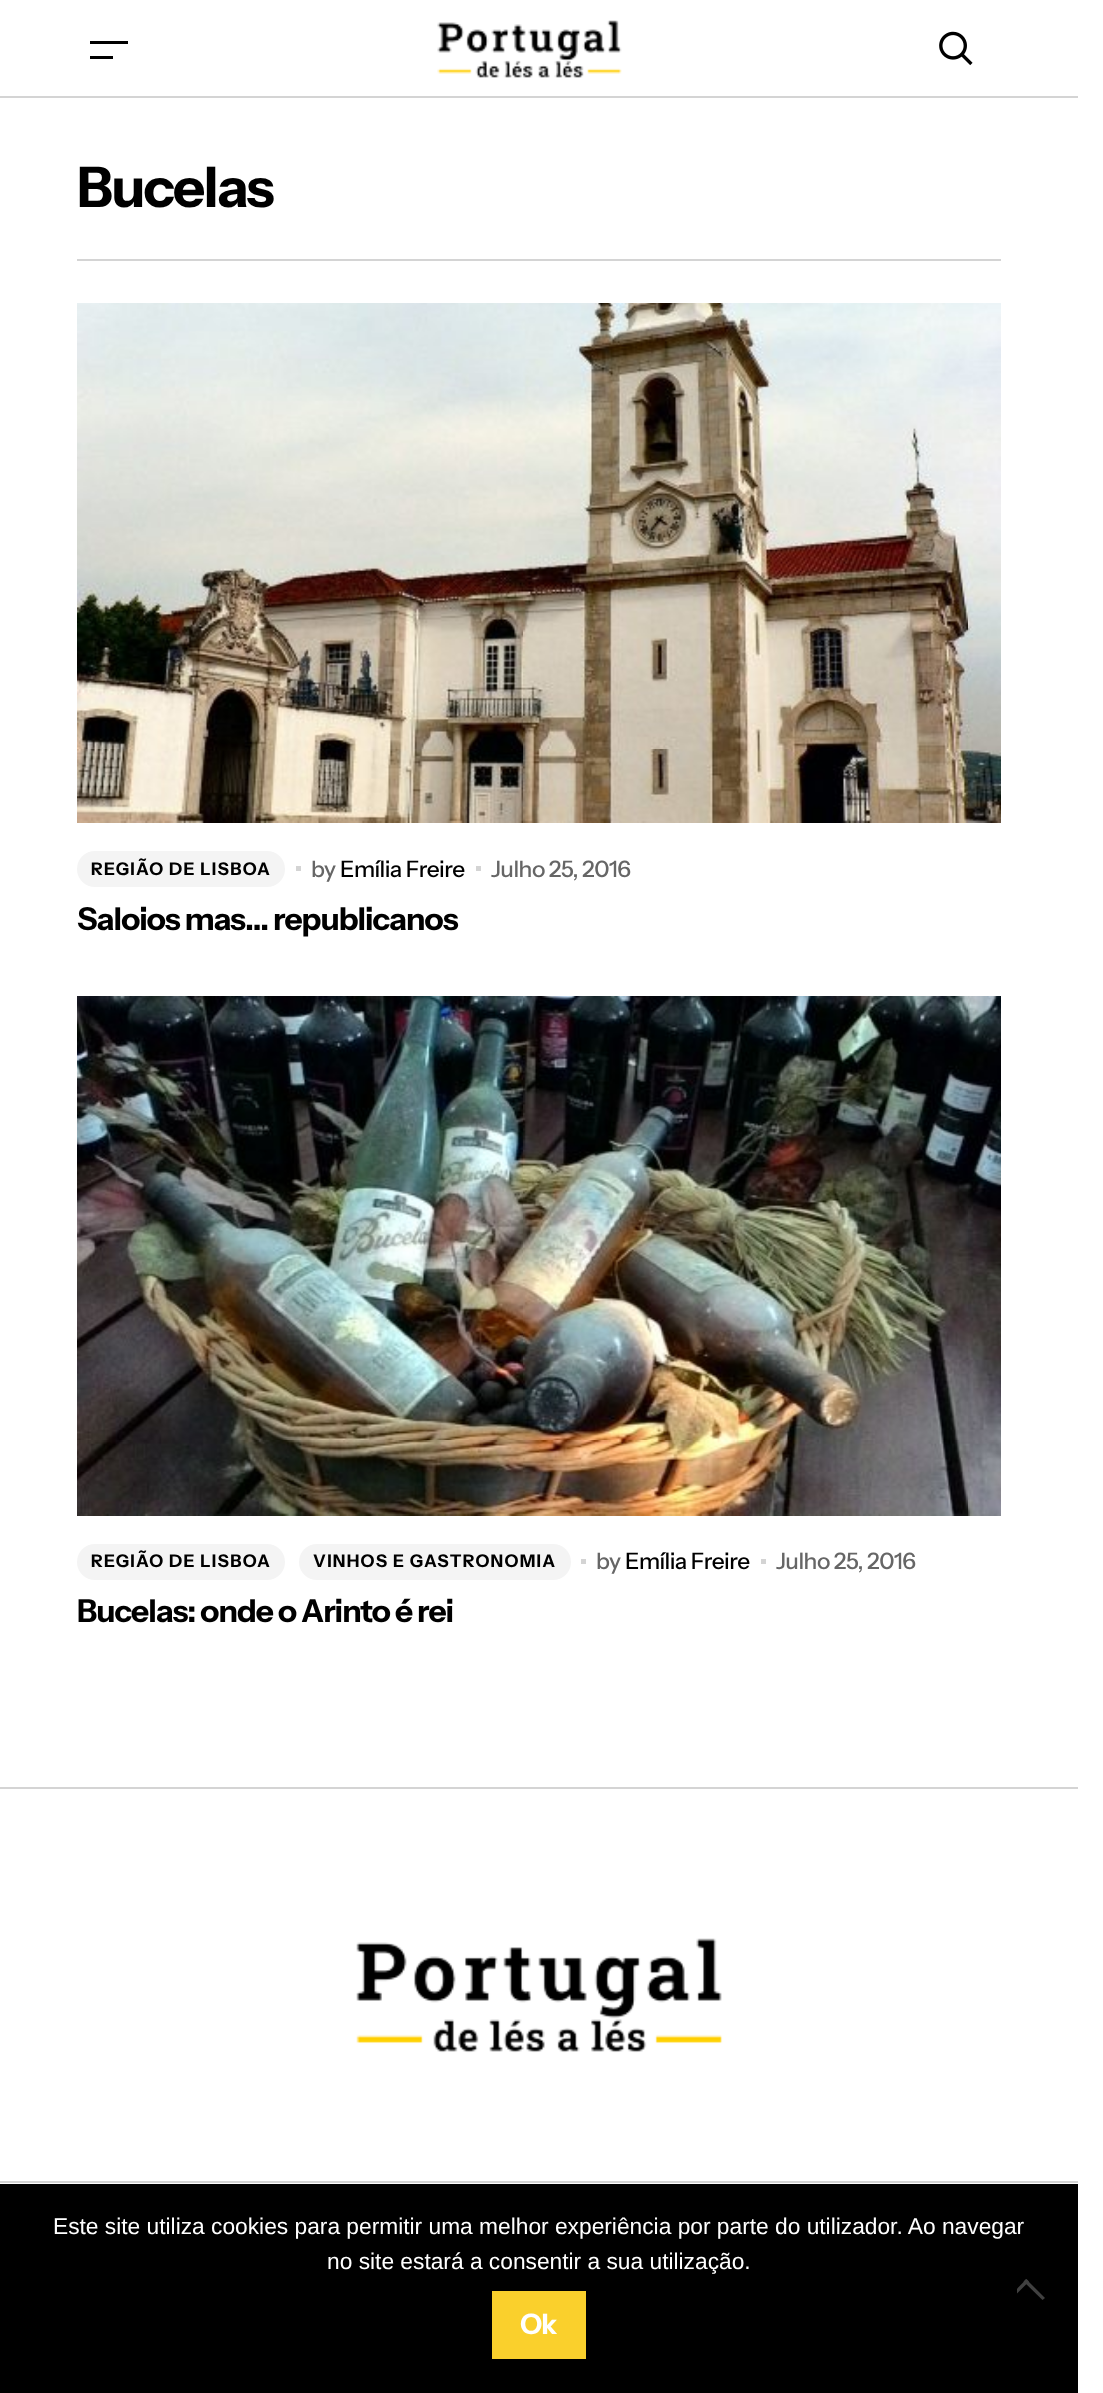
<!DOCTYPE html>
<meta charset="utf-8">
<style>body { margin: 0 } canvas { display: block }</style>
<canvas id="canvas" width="1103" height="2393"></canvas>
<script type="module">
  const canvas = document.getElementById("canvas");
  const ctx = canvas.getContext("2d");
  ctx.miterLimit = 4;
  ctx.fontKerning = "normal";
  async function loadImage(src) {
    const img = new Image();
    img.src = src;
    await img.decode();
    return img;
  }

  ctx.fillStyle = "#ffffff";
  ctx.fillRect(0, 0, 1103, 2393);
  ctx.fillStyle = "#000000";
  ctx.fillRect(90, 41, 38, 3);
  ctx.fillRect(90, 56, 23, 3);
  ctx.drawImage(await loadImage("img1.png"), 437, 20, 185, 58);
  ctx.drawImage(await loadImage("img2.png"), 939, 31, 34, 35);
  ctx.fillStyle = "#d4d4d4";
  ctx.fillRect(0, 96, 1078, 2);
  ctx.fillRect(77, 259, 924, 2);
  ctx.letterSpacing = "-1.75px";
  ctx.font = "bold 56px Instrument Sans";
  ctx.fillStyle = "#000000";
  ctx.fillText("Bucelas", 77, 207);
  ctx.drawImage(await loadImage("img3.png"), 77, 303, 924, 520);
  ctx.fillStyle = "#f4f4f4";
  ctx.beginPath();
  ctx.roundRect(77, 851, 208, 36, 18);
  ctx.fill();
  ctx.letterSpacing = "1.25px";
  ctx.font = "bold 17.5px Instrument Sans";
  ctx.fillStyle = "#000000";
  ctx.fillText("REGIÃO DE LISBOA", 91, 875);
  ctx.fillStyle = "#d4d4d4";
  ctx.fillRect(296, 866, 5, 5);
  ctx.letterSpacing = "-0.5px";
  ctx.font = "500 22.75px Instrument Sans";
  ctx.fillStyle = "#666666";
  ctx.fillText("by", 311, 877);
  ctx.fillStyle = "#000000";
  ctx.fillText("Emília Freire", 340, 877);
  ctx.fillStyle = "#d4d4d4";
  ctx.fillRect(476, 866, 5, 5);
  ctx.fillStyle = "#666666";
  ctx.fillText("Julho 25, 2016", 491, 877);
  ctx.letterSpacing = "-0.95px";
  ctx.font = "bold 31.5px Instrument Sans";
  ctx.fillStyle = "#000000";
  ctx.fillText("Saloios mas… republicanos", 77, 930);
  ctx.drawImage(await loadImage("img4.png"), 77, 996, 924, 520);
  ctx.fillStyle = "#f4f4f4";
  ctx.beginPath();
  ctx.roundRect(77, 1544, 208, 36, 18);
  ctx.fill();
  ctx.letterSpacing = "1.25px";
  ctx.font = "bold 17.5px Instrument Sans";
  ctx.fillStyle = "#000000";
  ctx.fillText("REGIÃO DE LISBOA", 91, 1567);
  ctx.fillStyle = "#f4f4f4";
  ctx.beginPath();
  ctx.roundRect(299, 1544, 272, 36, 18);
  ctx.fill();
  ctx.fillStyle = "#000000";
  ctx.fillText("VINHOS E GASTRONOMIA", 313, 1567);
  ctx.fillStyle = "#d4d4d4";
  ctx.fillRect(581, 1559, 5, 5);
  ctx.letterSpacing = "-0.5px";
  ctx.font = "500 22.75px Instrument Sans";
  ctx.fillStyle = "#666666";
  ctx.fillText("by", 596, 1569);
  ctx.fillStyle = "#000000";
  ctx.fillText("Emília Freire", 625, 1569);
  ctx.fillStyle = "#d4d4d4";
  ctx.fillRect(761, 1559, 5, 5);
  ctx.fillStyle = "#666666";
  ctx.fillText("Julho 25, 2016", 776, 1569);
  ctx.letterSpacing = "-0.95px";
  ctx.font = "bold 31.5px Instrument Sans";
  ctx.fillStyle = "#000000";
  ctx.fillText("Bucelas: onde o Arinto é rei", 77, 1622);
  ctx.fillStyle = "#d4d4d4";
  ctx.fillRect(0, 1787, 1078, 2);
  ctx.drawImage(await loadImage("img5.png"), 356, 1938, 367, 115);
  ctx.fillRect(0, 2181, 1078, 2);
  ctx.fillStyle = "#000000";
  ctx.fillRect(0, 2184, 1078, 209);
  ctx.letterSpacing = "0px";
  ctx.font = "22.75px Liberation Sans";
  ctx.fillStyle = "#ffffff";
  ctx.fillText("Este site utiliza cookies para permitir uma melhor experiência por parte do utilizador. Ao navegar", 53, 2234);
  ctx.fillText("no site estará a consentir a sua utilização.", 327, 2269);
  ctx.save();
  ctx.beginPath();
  ctx.rect(1017, 2272, 35, 35);
  ctx.clip();
  ctx.fillStyle = "#404040";
  ctx.beginPath();
  ctx.moveTo(1026.5, 2279);
  ctx.lineTo(1029, 2281.5);
  ctx.lineTo(1010.5, 2300);
  ctx.lineTo(1008, 2298);
  ctx.closePath();
  ctx.fill();
  ctx.restore();
  ctx.fillStyle = "#404040";
  ctx.beginPath();
  ctx.moveTo(1023.5, 2281.5);
  ctx.lineTo(1026, 2279);
  ctx.lineTo(1045, 2298);
  ctx.lineTo(1042.5, 2300);
  ctx.closePath();
  ctx.fill();
  ctx.fillStyle = "#fad02c";
  ctx.fillRect(492, 2291, 94, 68);
  ctx.letterSpacing = "-1px";
  ctx.font = "bold 28px Instrument Sans";
  ctx.fillStyle = "#ffffff";
  ctx.fillText("Ok", 520, 2334);
</script>
